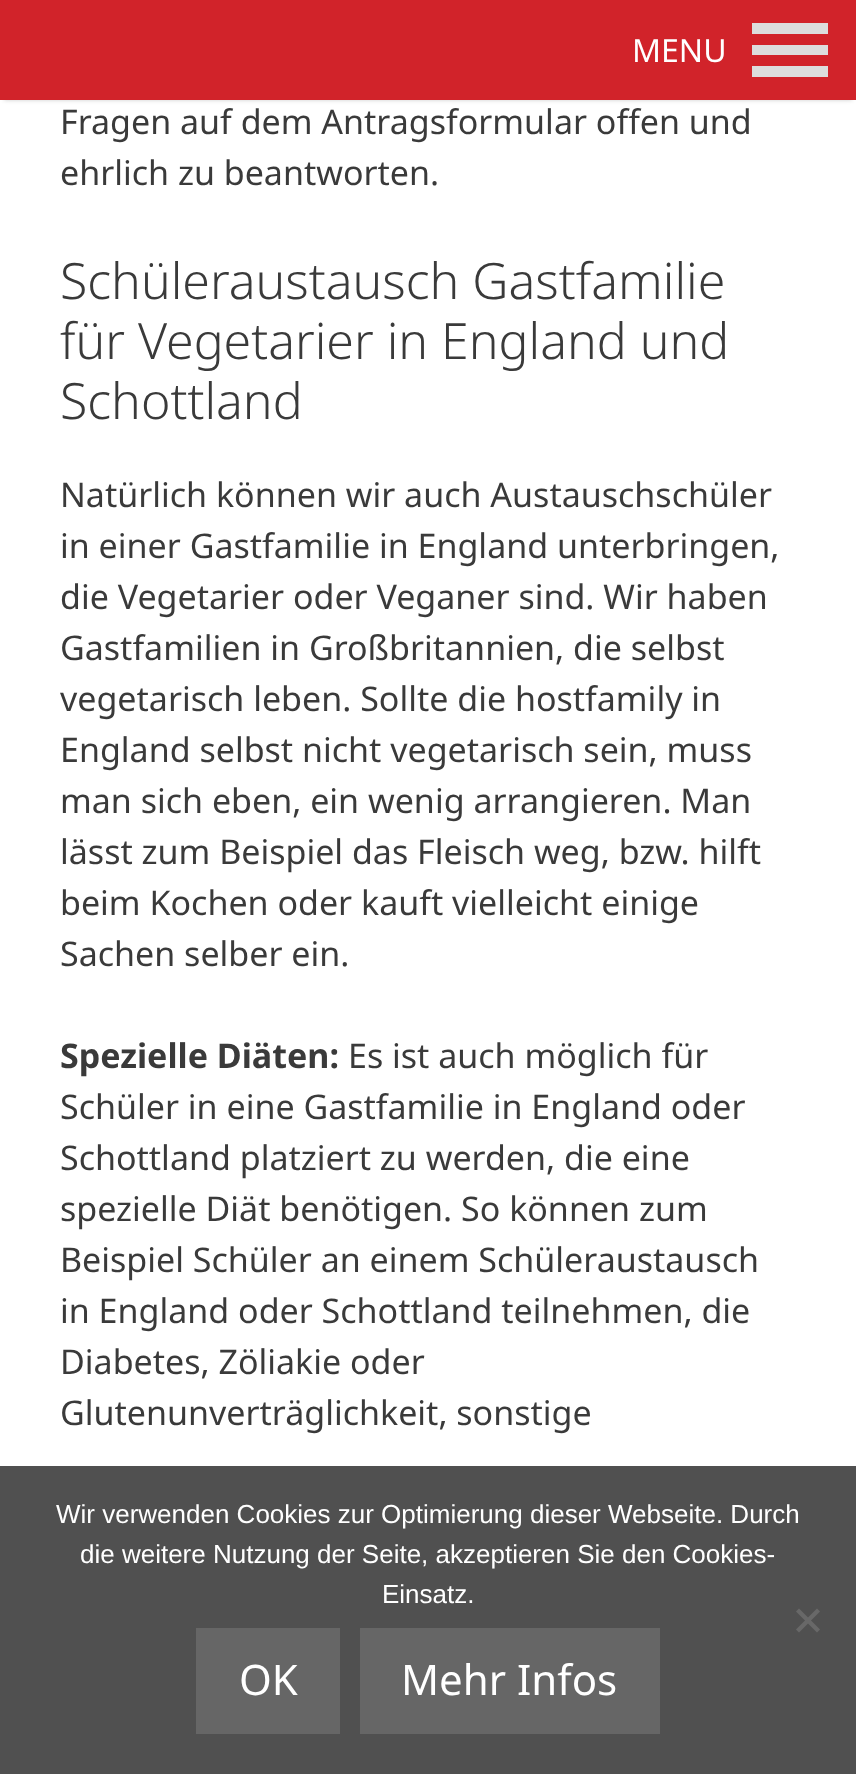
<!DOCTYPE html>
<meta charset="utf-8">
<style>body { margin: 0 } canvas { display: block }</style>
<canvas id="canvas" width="856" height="1774"></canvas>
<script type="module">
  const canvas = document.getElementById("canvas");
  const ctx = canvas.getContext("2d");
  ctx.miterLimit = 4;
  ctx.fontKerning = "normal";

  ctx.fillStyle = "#ffffff";
  ctx.fillRect(0, 0, 856, 1774);
  ctx.fillStyle = "rgba(0, 0, 0, 0.2)";
  ctx.filter = "blur(2px)";
  ctx.beginPath();
  ctx.rect(4, 8, 848, 92);
  ctx.fill();
  ctx.filter = "none";
  ctx.fillStyle = "#d1232a";
  ctx.fillRect(0, 0, 856, 100);
  ctx.font = "32px Noto Sans";
  ctx.fillStyle = "#ffffff";
  ctx.fillText("MENU", 632, 62);
  ctx.fillStyle = "#dddddd";
  ctx.beginPath();
  ctx.moveTo(752, 77);
  ctx.lineTo(828, 77);
  ctx.lineTo(828, 66);
  ctx.lineTo(752, 66);
  ctx.closePath();
  ctx.moveTo(752, 23);
  ctx.lineTo(752, 34);
  ctx.lineTo(828, 34);
  ctx.lineTo(828, 23);
  ctx.closePath();
  ctx.moveTo(752, 55);
  ctx.lineTo(828, 55);
  ctx.lineTo(828, 45);
  ctx.lineTo(752, 45);
  ctx.closePath();
  ctx.fill();
  ctx.font = "34px Noto Sans";
  ctx.fillStyle = "#3a3a3a";
  ctx.fillText("Fragen auf dem Antragsformular offen und", 60, 134);
  ctx.fillText("ehrlich zu beantworten.", 60, 185);
  ctx.font = "300 50px Noto Sans";
  ctx.fillText("Schüleraustausch Gastfamilie", 60, 299);
  ctx.fillText("für Vegetarier in England und", 60, 359);
  ctx.fillText("Schottland", 60, 419);
  ctx.font = "34px Noto Sans";
  ctx.fillText("Natürlich können wir auch Austauschschüler", 60, 507);
  ctx.fillText("in einer Gastfamilie in England unterbringen,", 60, 558);
  ctx.fillText("die Vegetarier oder Veganer sind. Wir haben", 60, 609);
  ctx.fillText("Gastfamilien in Großbritannien, die selbst", 60, 660);
  ctx.fillText("vegetarisch leben. Sollte die hostfamily in", 60, 711);
  ctx.fillText("England selbst nicht vegetarisch sein, muss", 60, 762);
  ctx.fillText("man sich eben, ein wenig arrangieren. Man", 60, 813);
  ctx.fillText("lässt zum Beispiel das Fleisch weg, bzw. hilft", 60, 864);
  ctx.fillText("beim Kochen oder kauft vielleicht einige", 60, 915);
  ctx.fillText("Sachen selber ein.", 60, 966);
  ctx.font = "bold 34px Noto Sans";
  ctx.fillText("Spezielle Diäten:", 60, 1068);
  ctx.font = "34px Noto Sans";
  ctx.fillText("Es ist auch möglich für", 348, 1068);
  ctx.fillText("Schüler in eine Gastfamilie in England oder", 60, 1119);
  ctx.fillText("Schottland platziert zu werden, die eine", 60, 1170);
  ctx.fillText("spezielle Diät benötigen. So können zum", 60, 1221);
  ctx.fillText("Beispiel Schüler an einem Schüleraustausch", 60, 1272);
  ctx.fillText("in England oder Schottland teilnehmen, die", 60, 1323);
  ctx.fillText("Diabetes, Zöliakie oder", 60, 1374);
  ctx.fillText("Glutenunverträglichkeit, sonstige", 60, 1425);
  ctx.fillStyle = "#505050";
  ctx.fillRect(0, 1466, 856, 308);
  ctx.font = "26px Liberation Sans";
  ctx.fillStyle = "#ffffff";
  ctx.fillText("Wir verwenden Cookies zur Optimierung dieser Webseite. Durch", 56, 1523);
  ctx.fillText("die weitere Nutzung der Seite, akzeptieren Sie den Cookies-", 80, 1563);
  ctx.fillText("Einsatz.", 382, 1603);
  ctx.fillStyle = "#686868";
  ctx.beginPath();
  ctx.moveTo(817, 1608.5);
  ctx.lineTo(820, 1611.5);
  ctx.lineTo(799, 1632.5);
  ctx.lineTo(796, 1629.5);
  ctx.closePath();
  ctx.fill();
  ctx.beginPath();
  ctx.moveTo(796, 1611.5);
  ctx.lineTo(799, 1608.5);
  ctx.lineTo(820, 1629.5);
  ctx.lineTo(817, 1632.5);
  ctx.closePath();
  ctx.fill();
  ctx.fillStyle = "#666666";
  ctx.fillRect(196, 1628, 144, 106);
  ctx.font = "42px Noto Sans";
  ctx.fillStyle = "#ffffff";
  ctx.fillText("OK", 239, 1695);
  ctx.fillStyle = "#666666";
  ctx.fillRect(360, 1628, 300, 106);
  ctx.fillStyle = "#ffffff";
  ctx.fillText("Mehr Infos", 401, 1695);
</script>
